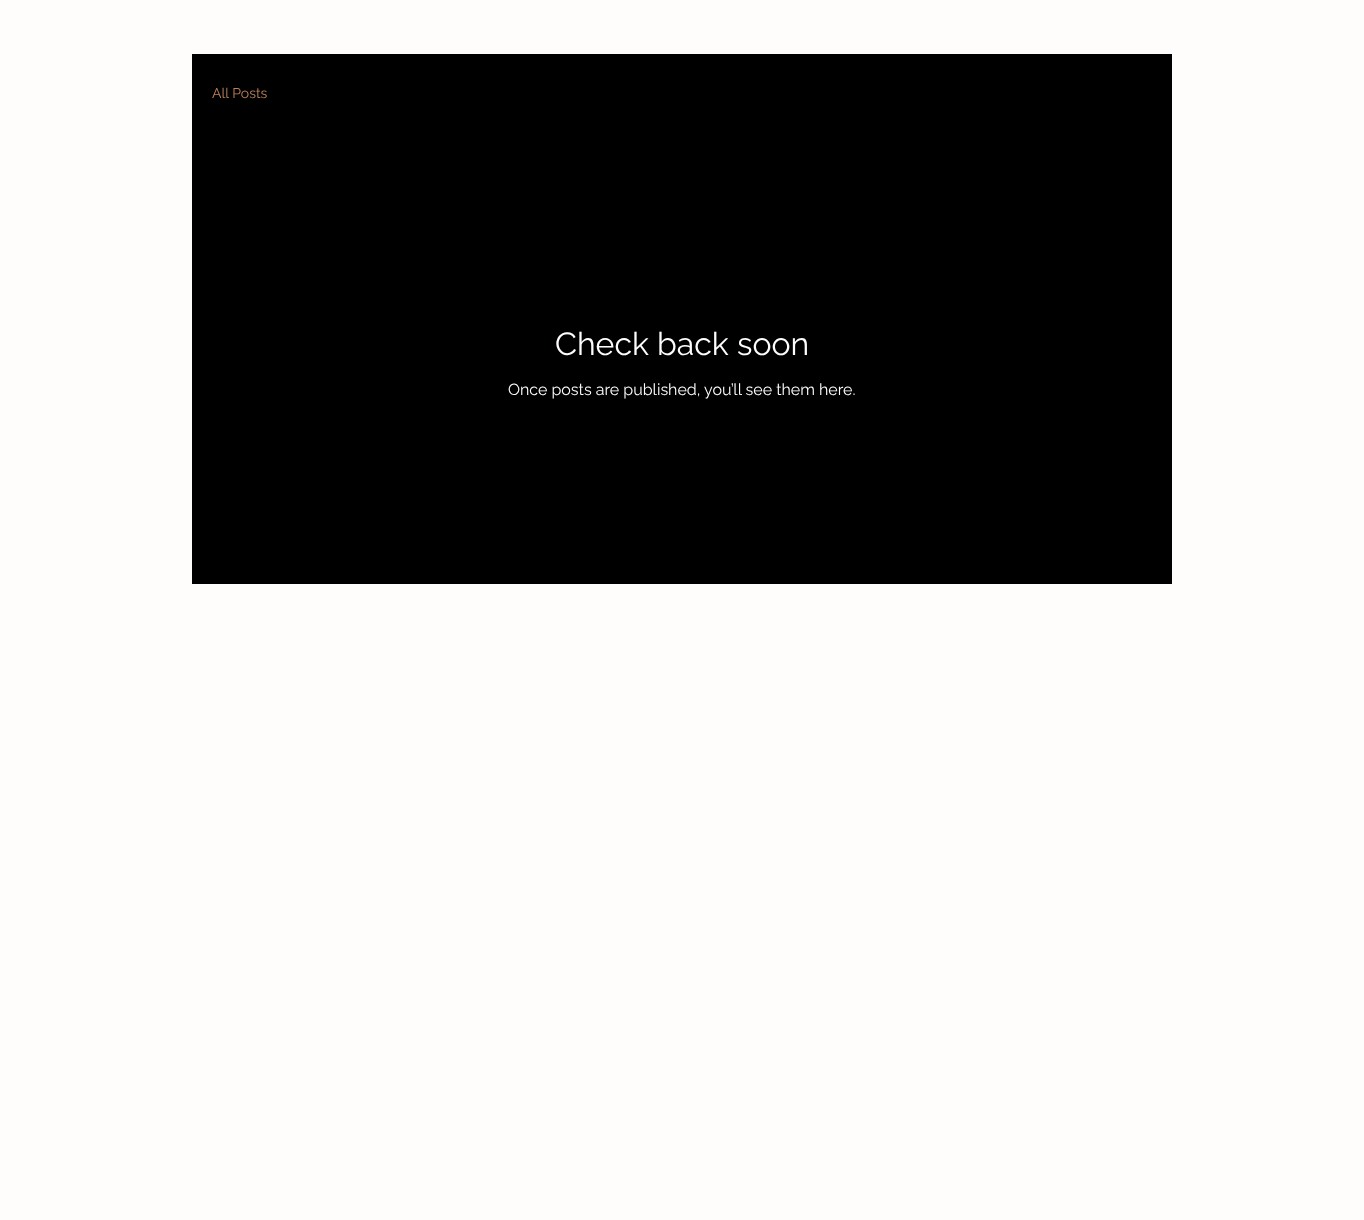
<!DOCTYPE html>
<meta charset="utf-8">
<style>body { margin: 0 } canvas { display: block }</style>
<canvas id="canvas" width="1364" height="1220"></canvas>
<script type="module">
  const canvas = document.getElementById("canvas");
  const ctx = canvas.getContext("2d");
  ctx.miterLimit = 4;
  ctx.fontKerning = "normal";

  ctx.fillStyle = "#fffcfc";
  ctx.fillRect(0, 0, 1364, 1220);
  ctx.fillStyle = "#000000";
  ctx.fillRect(192, 54, 980, 530);
  ctx.font = "14px Raleway";
  ctx.fillStyle = "#bf825a";
  ctx.fillText("All Posts", 212, 98);
  ctx.font = "32px Raleway";
  ctx.fillStyle = "#fffcfc";
  ctx.fillText("Check back soon", 555, 355);
  ctx.font = "16px Raleway";
  ctx.fillText("Once posts are published, you’ll see them here.", 508, 395);
</script>
